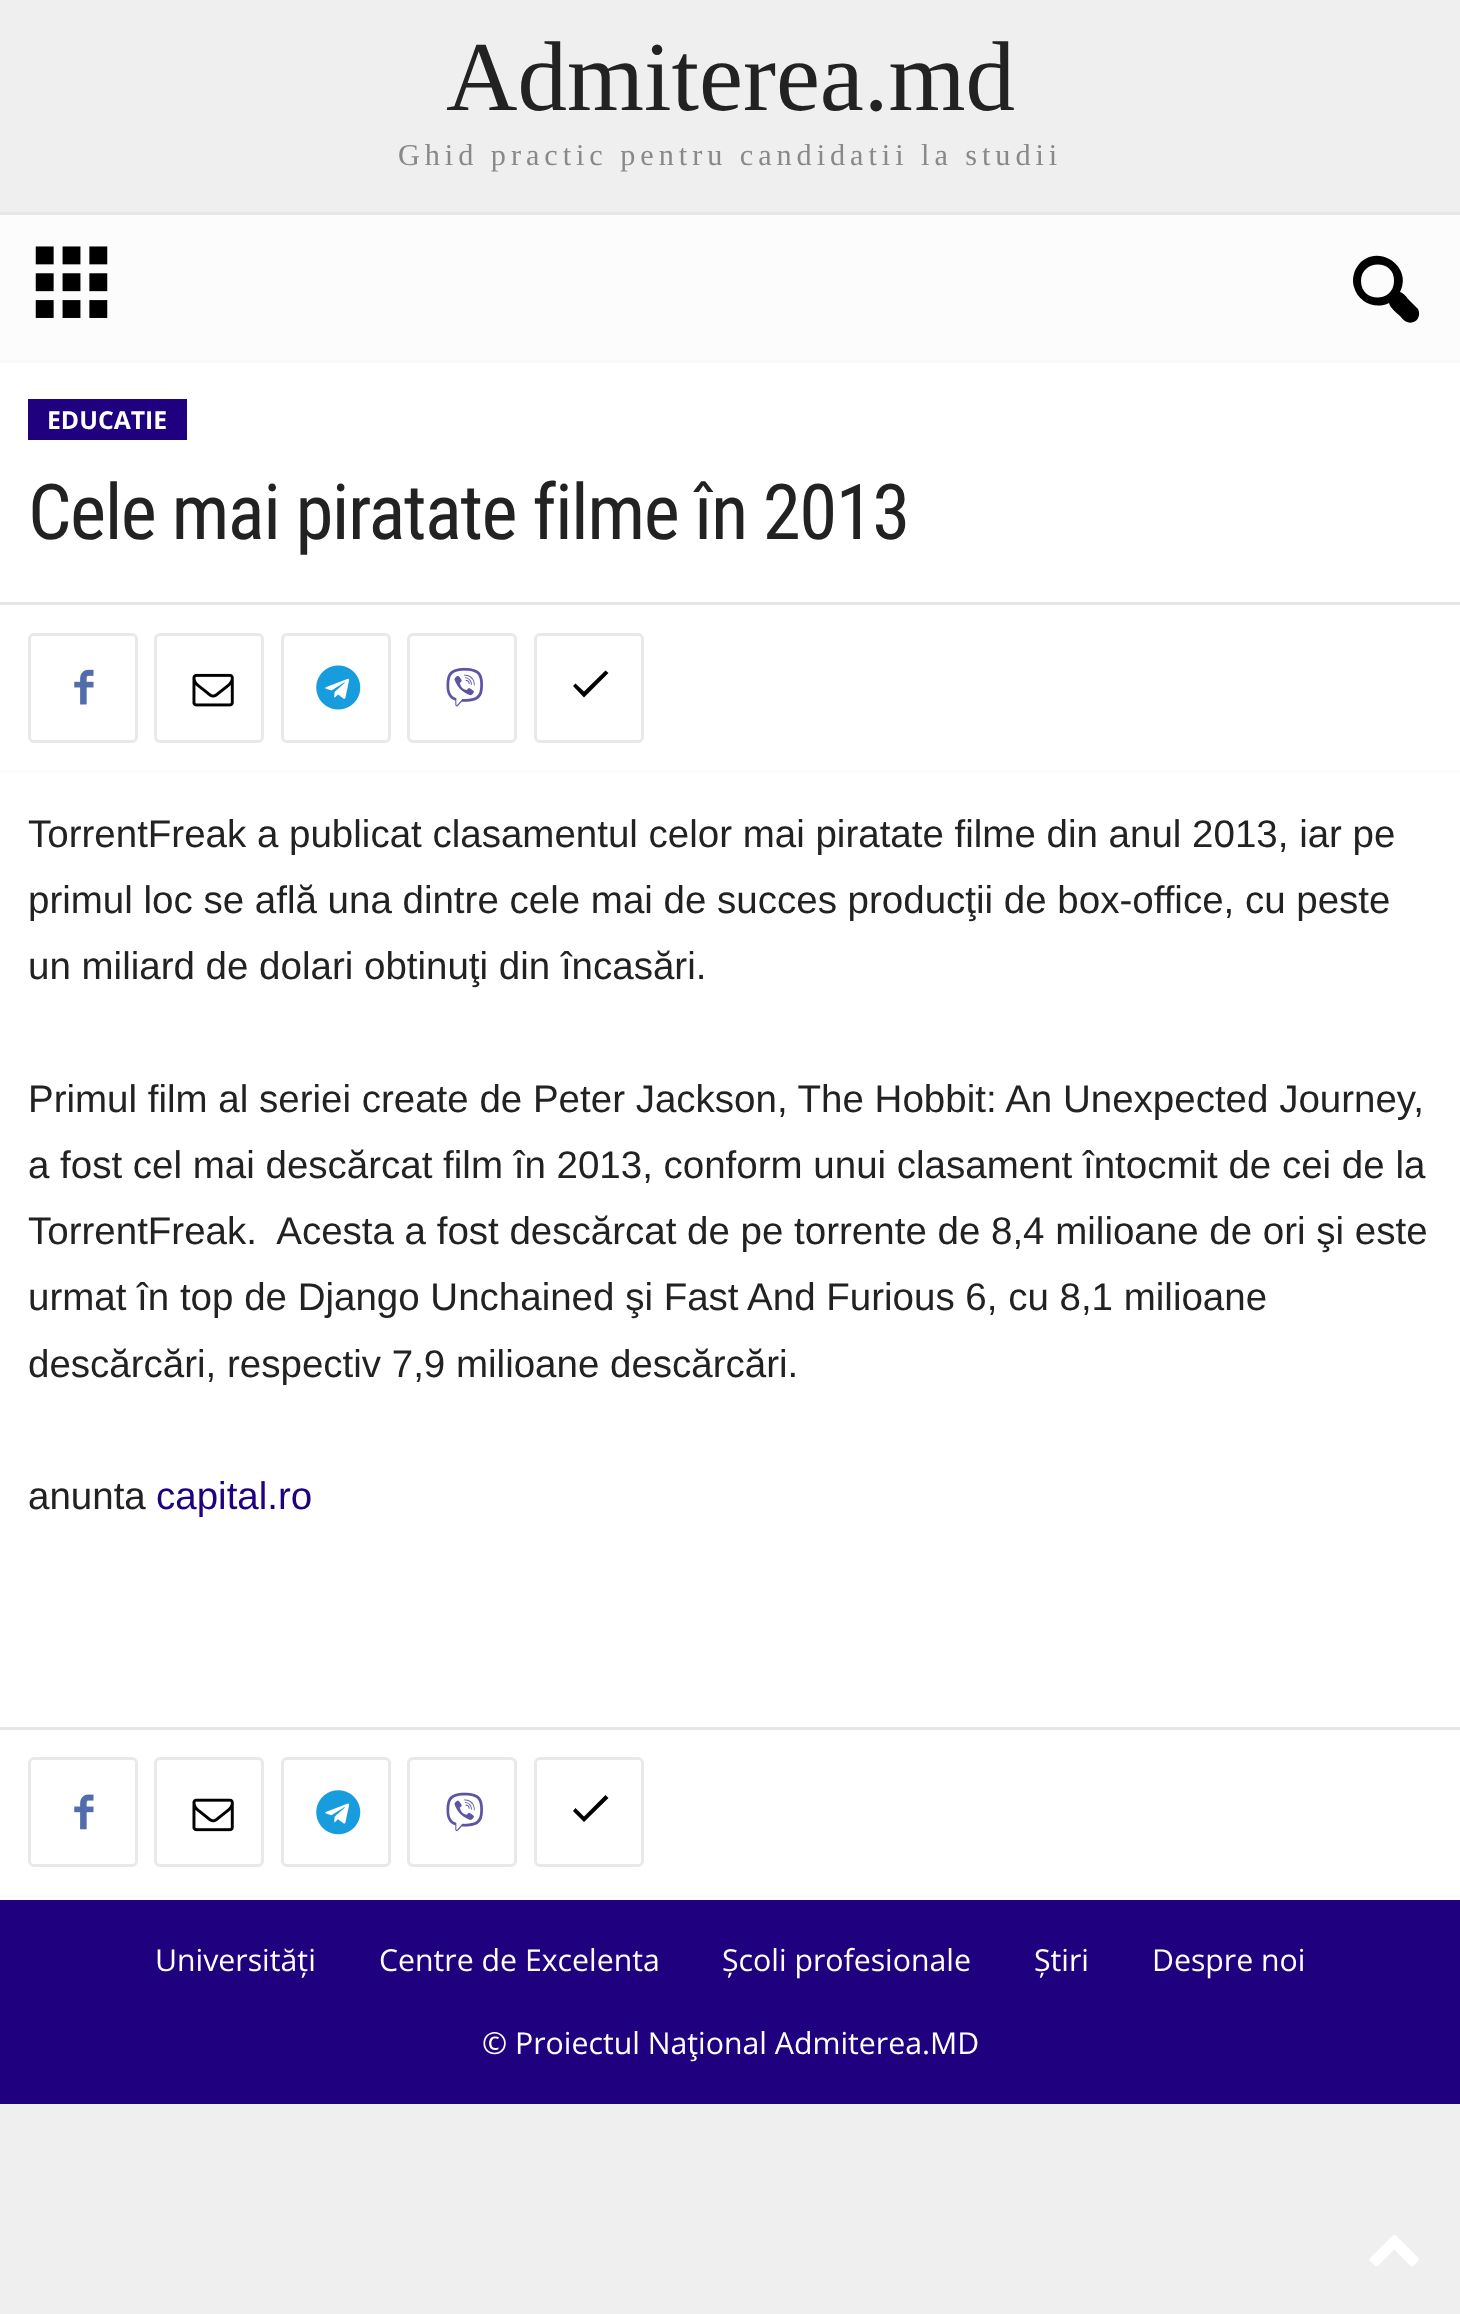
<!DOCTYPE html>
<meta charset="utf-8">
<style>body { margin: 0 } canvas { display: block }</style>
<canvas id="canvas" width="1460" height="2314"></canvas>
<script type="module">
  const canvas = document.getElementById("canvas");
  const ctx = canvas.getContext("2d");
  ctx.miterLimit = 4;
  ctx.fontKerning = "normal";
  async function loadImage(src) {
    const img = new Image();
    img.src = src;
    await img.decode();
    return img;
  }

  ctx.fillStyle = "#efefef";
  ctx.fillRect(0, 0, 1460, 2314);
  ctx.font = "99px Liberation Serif";
  ctx.fillStyle = "#222222";
  ctx.fillText("Admiterea.md", 446, 110);
  ctx.letterSpacing = "4.95px";
  ctx.font = "30.25px Liberation Serif";
  ctx.fillStyle = "#898989";
  ctx.fillText("Ghid practic pentru candidatii la studii", 398, 165);
  ctx.fillStyle = "#fcfcfc";
  ctx.fillRect(0, 215, 1460, 145);
  ctx.fillStyle = "#e6e6e6";
  ctx.fillRect(0, 212, 1460, 3);
  ctx.fillStyle = "#f9f9f9";
  ctx.fillRect(0, 360, 1460, 3);
  ctx.drawImage(await loadImage("img1.png"), 35, 246, 73, 72);
  ctx.fillStyle = "#000000";
  ctx.beginPath();
  ctx.moveTo(1354, 287);
  ctx.bezierCurveTo(1352, 281, 1353, 273, 1357, 267);
  ctx.bezierCurveTo(1374, 241, 1414, 265, 1400, 292);
  ctx.bezierCurveTo(1404, 293, 1407, 298, 1410, 301);
  ctx.lineTo(1418, 309);
  ctx.bezierCurveTo(1422, 317, 1415, 325, 1407, 322);
  ctx.bezierCurveTo(1404, 321, 1402, 318, 1400, 316);
  ctx.bezierCurveTo(1397, 313, 1390, 308, 1389, 303);
  ctx.bezierCurveTo(1375, 310, 1358, 302, 1354, 287);
  ctx.closePath();
  ctx.moveTo(1361, 281);
  ctx.bezierCurveTo(1361, 303, 1394, 303, 1394, 281);
  ctx.bezierCurveTo(1395, 259, 1361, 259, 1361, 281);
  ctx.closePath();
  ctx.fill();
  ctx.fillStyle = "#ffffff";
  ctx.fillRect(0, 363, 1460, 1532);
  ctx.fillStyle = "#fcfcfc";
  ctx.fillRect(0, 1895, 1460, 5);
  ctx.fillStyle = "#1f007f";
  ctx.fillRect(28, 399, 159, 41);
  ctx.letterSpacing = "0px";
  ctx.font = "bold 24.75px Open Sans";
  ctx.fillStyle = "#ffffff";
  ctx.fillText("EDUCATIE", 47, 429);
  ctx.letterSpacing = "-1.55px";
  ctx.font = "77px Roboto Condensed";
  ctx.fillStyle = "#222222";
  ctx.fillText("Cele mai piratate filme în 2013", 28, 539);
  ctx.fillStyle = "#e6e6e6";
  ctx.fillRect(0, 602, 1460, 3);
  ctx.beginPath();
  ctx.roundRect(29.5, 634.5, 107, 107, 4.5);
  ctx.strokeStyle = "#e9e9e9";
  ctx.lineWidth = 3;
  ctx.stroke();
  ctx.drawImage(await loadImage("img2.png"), 74, 669, 20, 36);
  ctx.beginPath();
  ctx.roundRect(155.5, 634.5, 107, 107, 4.5);
  ctx.stroke();
  ctx.drawImage(await loadImage("img3.png"), 192, 673, 42, 34);
  ctx.beginPath();
  ctx.roundRect(282.5, 634.5, 107, 107, 4.5);
  ctx.stroke();
  ctx.drawImage(await loadImage("img4.png"), 316, 665, 45, 45);
  ctx.beginPath();
  ctx.roundRect(408.5, 634.5, 107, 107, 4.5);
  ctx.stroke();
  ctx.drawImage(await loadImage("img5.png"), 446, 667, 37, 40);
  ctx.beginPath();
  ctx.roundRect(535.5, 634.5, 107, 107, 4.5);
  ctx.stroke();
  ctx.fillStyle = "#000000";
  ctx.beginPath();
  ctx.moveTo(584, 691.5);
  ctx.lineTo(575.5, 683.5);
  ctx.lineTo(573, 686);
  ctx.lineTo(584, 697.5);
  ctx.lineTo(608.5, 673);
  ctx.lineTo(605.5, 670.5);
  ctx.closePath();
  ctx.fill();
  ctx.fillStyle = "#fcfcfc";
  ctx.fillRect(0, 770, 1460, 3);
  ctx.letterSpacing = "0px";
  ctx.font = "38.5px Liberation Sans";
  ctx.fillStyle = "#222222";
  ctx.fillText("TorrentFreak a publicat clasamentul celor mai piratate filme din anul 2013, iar pe", 28, 847);
  ctx.fillText("primul loc se află una dintre cele mai de succes producţii de box-office, cu peste", 28, 913);
  ctx.fillText("un miliard de dolari obtinuţi din încasări.", 28, 979);
  ctx.fillText("Primul film al seriei create de Peter Jackson, The Hobbit: An Unexpected Journey,", 28, 1112);
  ctx.fillText("a fost cel mai descărcat film în 2013, conform unui clasament întocmit de cei de la", 28, 1178);
  ctx.fillText("TorrentFreak.  Acesta a fost descărcat de pe torrente de 8,4 milioane de ori şi este", 28, 1244);
  ctx.fillText("urmat în top de Django Unchained şi Fast And Furious 6, cu 8,1 milioane", 28, 1310);
  ctx.fillText("descărcări, respectiv 7,9 milioane descărcări.", 28, 1377);
  ctx.fillText("anunta", 28, 1509);
  ctx.fillStyle = "#1f007f";
  ctx.fillText("capital.ro", 156, 1509);
  ctx.fillStyle = "#e6e6e6";
  ctx.fillRect(0, 1727, 1460, 3);
  ctx.beginPath();
  ctx.roundRect(29.5, 1758.5, 107, 107, 4.5);
  ctx.stroke();
  ctx.drawImage(await loadImage("img6.png"), 74, 1794, 20, 36);
  ctx.beginPath();
  ctx.roundRect(155.5, 1758.5, 107, 107, 4.5);
  ctx.stroke();
  ctx.drawImage(await loadImage("img7.png"), 192, 1798, 42, 34);
  ctx.beginPath();
  ctx.roundRect(282.5, 1758.5, 107, 107, 4.5);
  ctx.stroke();
  ctx.drawImage(await loadImage("img8.png"), 316, 1790, 45, 45);
  ctx.beginPath();
  ctx.roundRect(408.5, 1758.5, 107, 107, 4.5);
  ctx.stroke();
  ctx.drawImage(await loadImage("img9.png"), 446, 1792, 37, 40);
  ctx.beginPath();
  ctx.roundRect(535.5, 1758.5, 107, 107, 4.5);
  ctx.stroke();
  ctx.fillStyle = "#000000";
  ctx.beginPath();
  ctx.moveTo(584, 1816.5);
  ctx.lineTo(575.5, 1808);
  ctx.lineTo(573, 1811);
  ctx.lineTo(584, 1822);
  ctx.lineTo(608.5, 1798);
  ctx.lineTo(605.5, 1795);
  ctx.closePath();
  ctx.fill();
  ctx.fillStyle = "#1f007f";
  ctx.fillRect(0, 1901, 1460, 203);
  ctx.fillStyle = "#1f007e";
  ctx.fillRect(0, 1900, 1460, 1);
  ctx.font = "30.25px Open Sans";
  ctx.fillStyle = "#ffffff";
  ctx.fillText("Universități", 155, 1971);
  ctx.fillText("Centre de Excelenta", 379, 1971);
  ctx.fillText("Școli profesionale", 722, 1971);
  ctx.fillText("Știri", 1034, 1971);
  ctx.fillText("Despre noi", 1152, 1971);
  ctx.fillText("© Proiectul Naţional Admiterea.MD", 482, 2054);
  ctx.drawImage(await loadImage("img10.png"), 1369, 2234, 50, 33);
</script>
